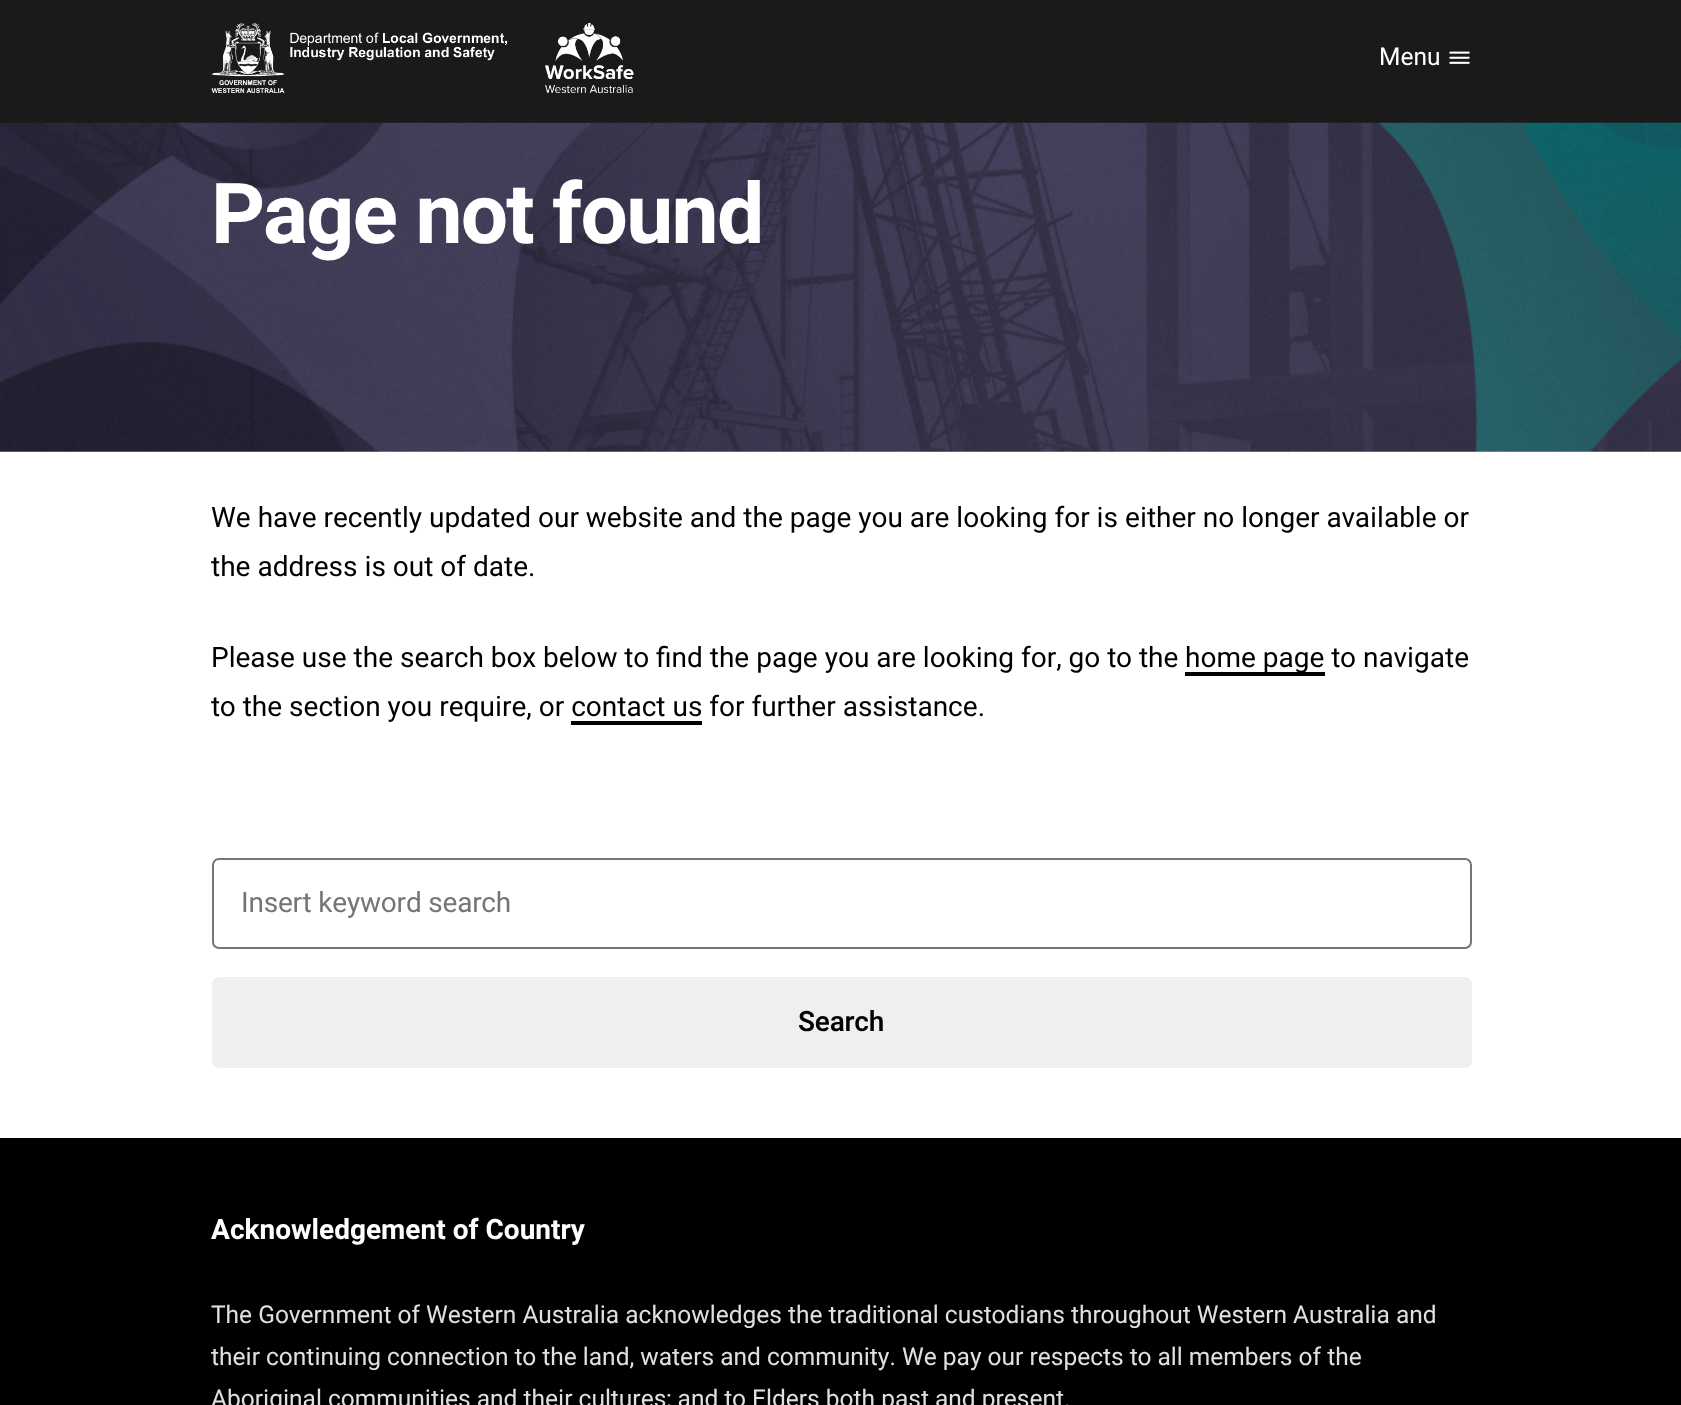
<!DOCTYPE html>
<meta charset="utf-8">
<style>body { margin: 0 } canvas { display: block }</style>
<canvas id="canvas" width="1681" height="1405"></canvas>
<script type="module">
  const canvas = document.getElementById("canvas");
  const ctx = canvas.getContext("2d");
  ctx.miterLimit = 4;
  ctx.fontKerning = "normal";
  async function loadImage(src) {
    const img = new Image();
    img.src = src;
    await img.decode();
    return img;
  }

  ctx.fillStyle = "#ffffff";
  ctx.fillRect(0, 0, 1681, 1405);
  ctx.fillStyle = "#1a1a1a";
  ctx.fillRect(0, 0, 1681, 123);
  ctx.drawImage(await loadImage("img1.png"), 211, 23, 423, 70);
  ctx.font = "24.5px Heebo";
  ctx.fillStyle = "#ffffff";
  ctx.fillText("Menu", 1379, 65);
  ctx.drawImage(await loadImage("img2.png"), 1449, 51, 21, 13);
  ctx.drawImage(await loadImage("img3.png"), 0, 122, 1681, 330);
  ctx.letterSpacing = "-1.75px";
  ctx.font = "bold 84px Heebo";
  ctx.fillText("Page not found", 211, 243);
  ctx.letterSpacing = "0px";
  ctx.font = "28px Heebo";
  ctx.fillStyle = "#000000";
  ctx.fillText("We have recently updated our website and the page you are looking for is either no longer available or", 211, 527);
  ctx.fillText("the address is out of date.", 211, 576);
  ctx.fillText("Please use the search box below to find the page you are looking for, go to the", 211, 667);
  ctx.fillRect(1185, 672, 140, 4);
  ctx.fillText("home page to navigate", 1185, 667);
  ctx.fillText("to the section you require, or contact us for further assistance.", 211, 716);
  ctx.fillRect(571, 721, 131, 4);
  ctx.beginPath();
  ctx.roundRect(213, 859, 1258, 89, 6);
  ctx.strokeStyle = "#767676";
  ctx.lineWidth = 2;
  ctx.stroke();
  ctx.letterSpacing = "-0.2px";
  ctx.fillStyle = "#757575";
  ctx.fillText("Insert keyword search", 241, 912);
  ctx.fillStyle = "#efefef";
  ctx.beginPath();
  ctx.roundRect(212, 977, 1260, 91, 7);
  ctx.fill();
  ctx.font = "600 28px Heebo";
  ctx.fillStyle = "#000000";
  ctx.fillText("Search", 798, 1031);
  ctx.fillRect(0, 1138, 1681, 267);
  ctx.letterSpacing = "0px";
  ctx.font = "bold 28px Heebo";
  ctx.fillStyle = "#ffffff";
  ctx.fillText("Acknowledgement of Country", 211, 1239);
  ctx.font = "24.5px Heebo";
  ctx.fillStyle = "#e0e0e0";
  ctx.fillText("The Government of Western Australia acknowledges the traditional custodians throughout Western Australia and", 211, 1323);
  ctx.fillText("their continuing connection to the land, waters and community. We pay our respects to all members of the", 211, 1365);
  ctx.fillText("Aboriginal communities and their cultures; and to Elders both past and present.", 211, 1407);
</script>
